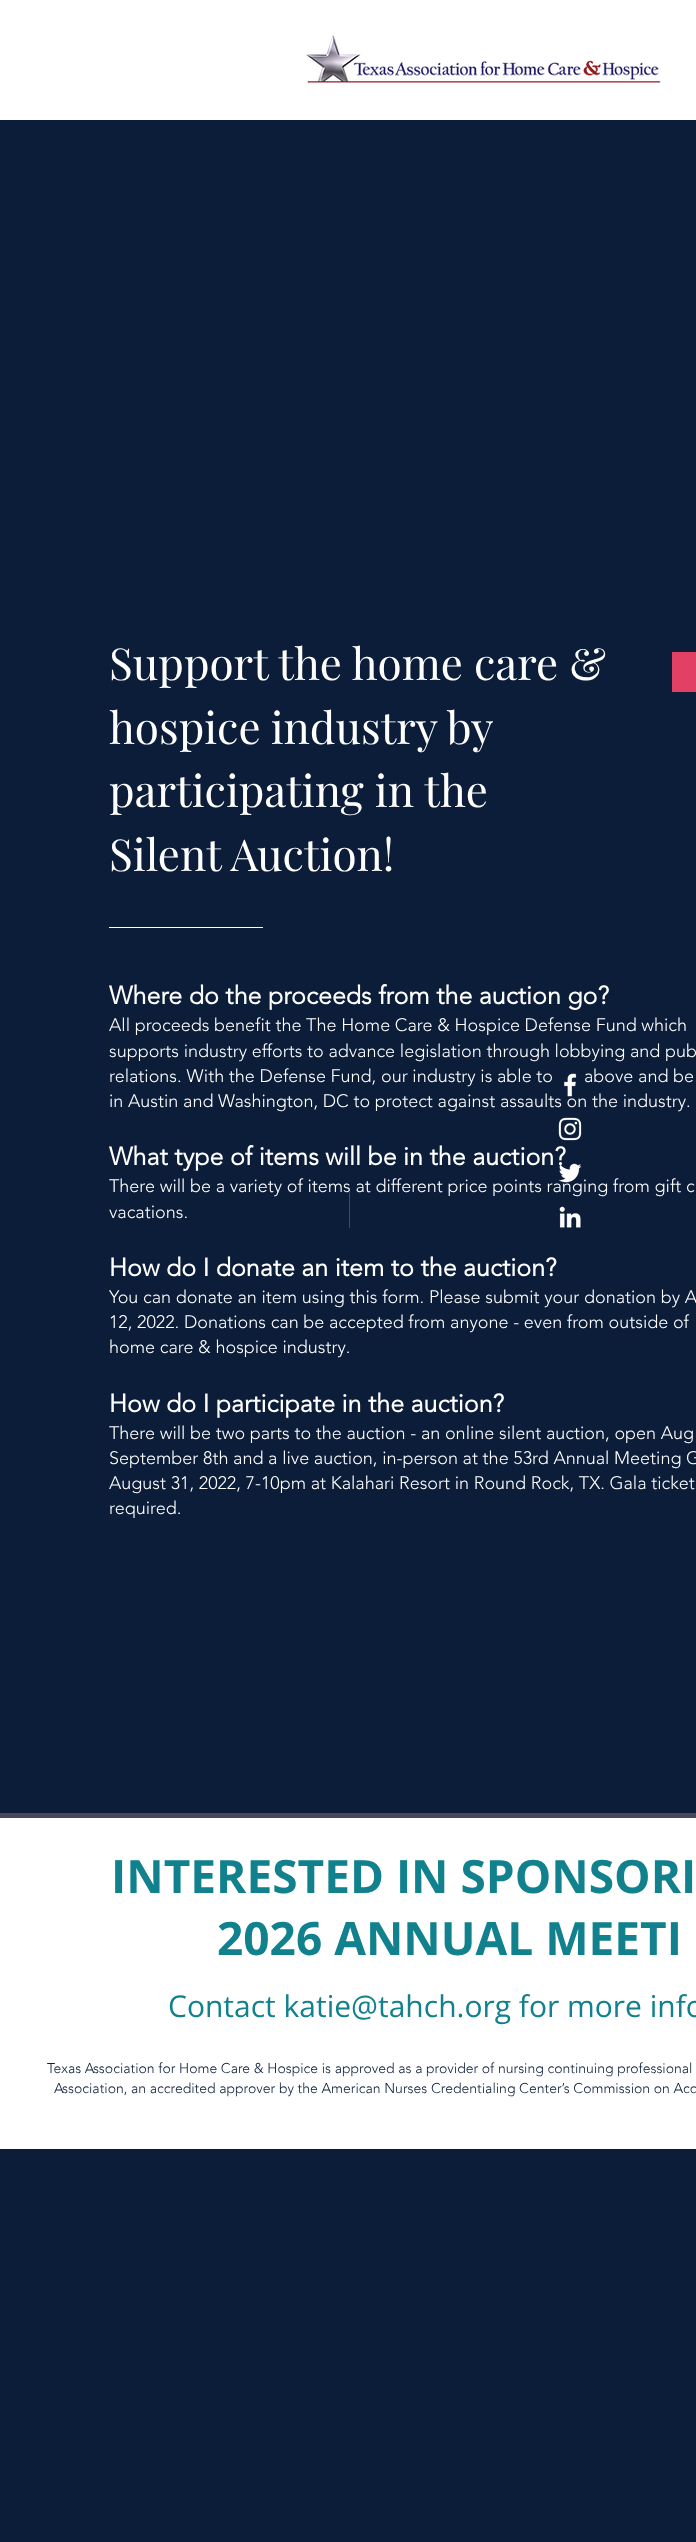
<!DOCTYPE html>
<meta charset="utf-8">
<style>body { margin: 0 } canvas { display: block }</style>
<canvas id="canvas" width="696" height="2542"></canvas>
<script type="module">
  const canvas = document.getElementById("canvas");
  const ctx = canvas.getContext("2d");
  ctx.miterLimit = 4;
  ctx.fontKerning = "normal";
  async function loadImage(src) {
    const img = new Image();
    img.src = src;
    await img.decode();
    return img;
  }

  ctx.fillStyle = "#0c1d39";
  ctx.fillRect(0, 0, 696, 2542);
  ctx.fillStyle = "#ffffff";
  ctx.fillRect(0, 0, 696, 120);
  ctx.drawImage(await loadImage("img1.png"), 306, 35, 355, 48);
  ctx.font = "44px Playfair Display";
  ctx.fillText("Support the home care &", 109, 680);
  ctx.wordSpacing = "-1px";
  ctx.fillText("hospice industry by", 109, 744);
  ctx.wordSpacing = "0px";
  ctx.fillText("participating in the", 109, 807);
  ctx.fillText("Silent Auction!", 109, 871);
  ctx.fillStyle = "#e24065";
  ctx.fillRect(672, 652, 24, 40);
  ctx.fillStyle = "#ffffff";
  ctx.fillRect(109, 927, 154, 1);
  ctx.font = "bold 25px 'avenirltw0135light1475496'";
  ctx.fillText("Where do the proceeds from the auction go?", 109, 1004);
  ctx.font = "300 18px 'avenirltw0135light1475496'";
  ctx.fillText("All proceeds benefit the The Home Care & Hospice Defense Fund which", 109, 1031);
  ctx.fillText("supports industry efforts to advance legislation through lobbying and pub", 109, 1057);
  ctx.fillText("relations. With the Defense Fund, our industry is able to", 109, 1082);
  ctx.fillText("above and be", 584, 1082);
  ctx.fillText("in Austin and Washington, DC to protect against assaults on the industry.", 109, 1107);
  ctx.font = "bold 25px 'avenirltw0135light1475496'";
  ctx.fillText("What type of items will be in the auction?", 109, 1165);
  ctx.fillStyle = "#484859";
  ctx.fillRect(349, 1192, 1, 36);
  ctx.font = "300 18px 'avenirltw0135light1475496'";
  ctx.fillStyle = "#ffffff";
  ctx.fillText("There will be a variety of items at different price points ranging from gift c", 109, 1192);
  ctx.fillText("vacations.", 109, 1218);
  ctx.font = "bold 25px 'avenirltw0135light1475496'";
  ctx.fillText("How do I donate an item to the auction?", 109, 1276);
  ctx.font = "300 18px 'avenirltw0135light1475496'";
  ctx.fillText("You can donate an item using this form. Please submit your donation by A", 109, 1303);
  ctx.fillText("12, 2022. Donations can be accepted from anyone - even from outside of", 109, 1328);
  ctx.fillText("home care & hospice industry.", 109, 1353);
  ctx.font = "bold 25px 'avenirltw0135light1475496'";
  ctx.fillText("How do I participate in the auction?", 109, 1412);
  ctx.font = "300 18px 'avenirltw0135light1475496'";
  ctx.fillText("There will be two parts to the auction - an online silent auction, open Aug", 109, 1439);
  ctx.fillText("September 8th and a live auction, in-person at the 53rd Annual Meeting G", 109, 1464);
  ctx.fillText("August 31, 2022, 7-10pm at Kalahari Resort in Round Rock, TX. Gala ticket", 109, 1489);
  ctx.fillText("required.", 109, 1514);
  ctx.drawImage(await loadImage("img2.png"), 564, 1073, 13, 24);
  ctx.drawImage(await loadImage("img3.png"), 558, 1117, 24, 24);
  ctx.drawImage(await loadImage("img4.png"), 559, 1163, 23, 20);
  ctx.drawImage(await loadImage("img5.png"), 559, 1206, 22, 22);
  ctx.fillRect(0, 1818, 696, 331);
  ctx.fillStyle = "#484859";
  ctx.fillRect(0, 1813, 696, 5);
  ctx.font = "bold 46px Open Sans";
  ctx.fillStyle = "#11818d";
  ctx.fillText("INTERESTED IN SPONSORI", 111, 1893);
  ctx.fillText("2026 ANNUAL MEETI", 217, 1955);
  ctx.font = "30px Open Sans";
  ctx.fillText("Contact katie@tahch.org for more info", 168, 2017);
  ctx.font = "300 14px 'avenirltw0135light1475496'";
  ctx.fillStyle = "#0c1d39";
  ctx.fillText("Texas Association for Home Care & Hospice is approved as a provider of nursing continuing professional", 47, 2073);
  ctx.fillText("Association, an accredited approver by the American Nurses Credentialing Center’s Commission on Acc", 54, 2093);
</script>
